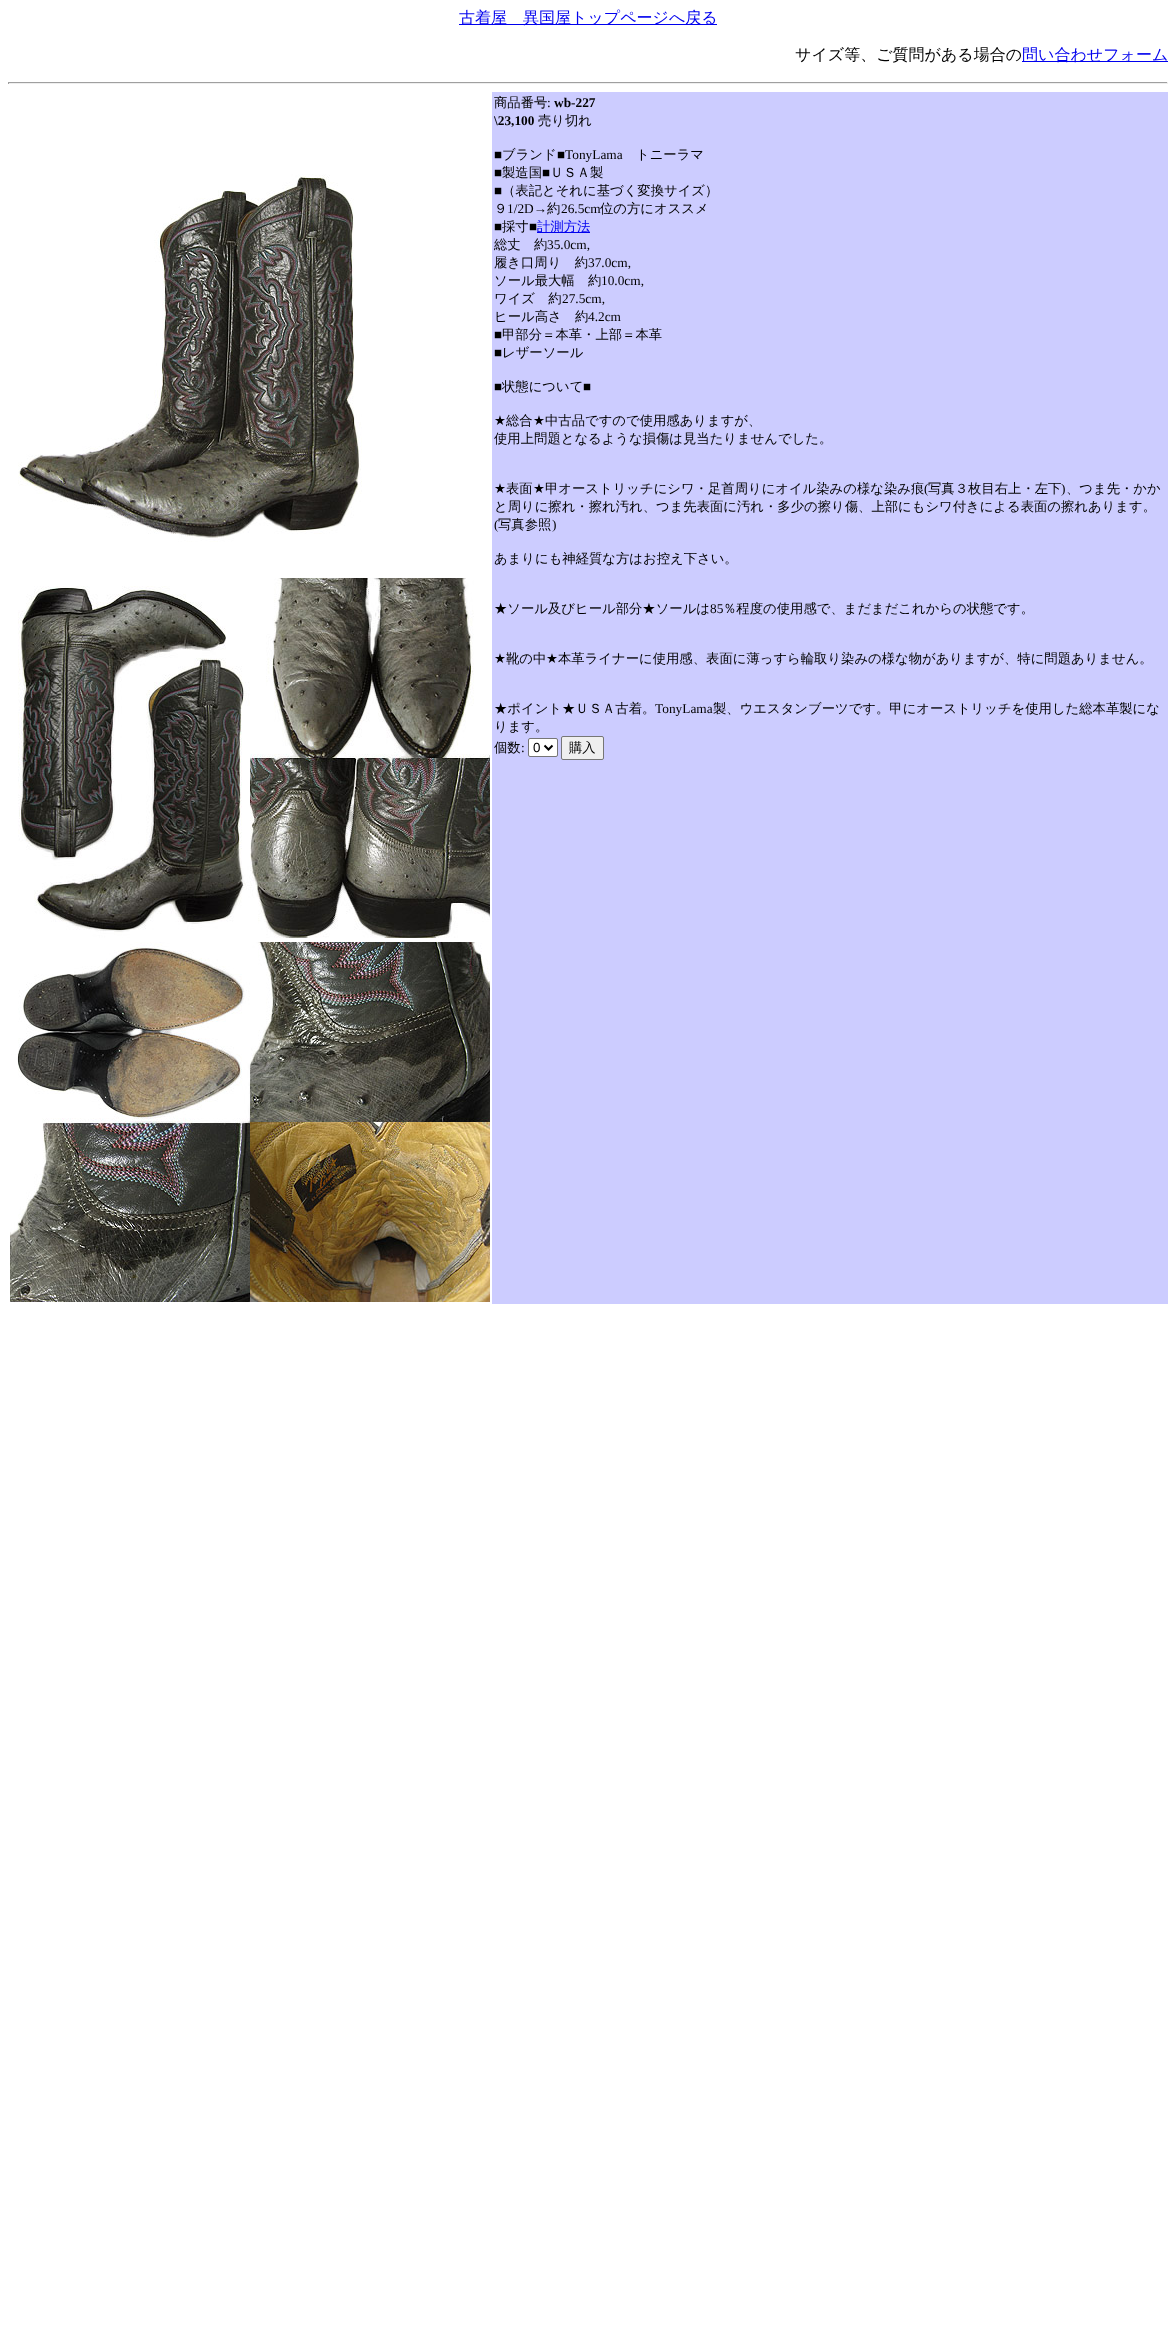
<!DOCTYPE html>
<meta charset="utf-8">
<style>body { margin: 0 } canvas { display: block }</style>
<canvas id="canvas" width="1176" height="2343"></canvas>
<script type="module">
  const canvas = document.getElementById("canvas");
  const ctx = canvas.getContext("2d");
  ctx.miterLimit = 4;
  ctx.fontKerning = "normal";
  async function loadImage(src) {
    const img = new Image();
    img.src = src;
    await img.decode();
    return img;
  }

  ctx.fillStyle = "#ffffff";
  ctx.fillRect(0, 0, 1176, 2343);
  ctx.fillStyle = "#0000ee";
  ctx.fillRect(459, 24, 258, 1);
  ctx.font = "500 16px WenQuanYi Zen Hei";
  ctx.fillText("古着屋　異国屋トップページへ戻る", 459, 23);
  ctx.fillStyle = "#000000";
  ctx.fillText("サイズ等、ご質問がある場合の", 795, 60);
  ctx.fillStyle = "#0000ee";
  ctx.fillRect(1022, 61, 146, 1);
  ctx.fillText("問い合わせフォーム", 1022, 60);
  ctx.fillStyle = "#9f9f9f";
  ctx.fillRect(8, 82, 1160, 1);
  ctx.fillStyle = "#eeeeee";
  ctx.fillRect(1167, 82, 1, 2);
  ctx.fillRect(8, 83, 1160, 1);
  ctx.fillStyle = "#9f9f9f";
  ctx.fillRect(8, 82, 1, 2);
  ctx.drawImage(await loadImage("img1.png"), 18, 578, 472, 360);
  ctx.drawImage(await loadImage("img2.png"), 18, 174, 344, 368);
  ctx.fillStyle = "#ccccff";
  ctx.fillRect(492, 92, 676, 1212);
  ctx.font = "500 13.35px WenQuanYi Zen Hei";
  ctx.fillStyle = "#000000";
  ctx.fillText("商品番号", 494, 107);
  ctx.font = "13.35px Liberation Serif";
  ctx.fillText(":", 547, 107);
  ctx.font = "bold 13.35px Liberation Serif";
  ctx.fillText("wb-227", 554, 107);
  ctx.fillText("\\23,100", 494, 125);
  ctx.font = "500 13.35px WenQuanYi Zen Hei";
  ctx.fillText("売り切れ", 538, 125);
  ctx.font = "13.35px Liberation Serif";
  ctx.fillText("■", 494, 159);
  ctx.font = "500 13.35px WenQuanYi Zen Hei";
  ctx.fillText("ブランド", 502, 159);
  ctx.font = "13.35px Liberation Serif";
  ctx.fillText("■TonyLama", 557, 159);
  ctx.font = "500 13.35px WenQuanYi Zen Hei";
  ctx.fillText("トニーラマ", 636, 159);
  ctx.font = "13.35px Liberation Serif";
  ctx.fillText("■", 494, 177);
  ctx.font = "500 13.35px WenQuanYi Zen Hei";
  ctx.fillText("製造国", 502, 177);
  ctx.font = "13.35px Liberation Serif";
  ctx.fillText("■", 542, 177);
  ctx.font = "500 13.35px WenQuanYi Zen Hei";
  ctx.fillText("ＵＳＡ製", 550, 177);
  ctx.font = "13.35px Liberation Serif";
  ctx.fillText("■", 494, 195);
  ctx.font = "500 13.35px WenQuanYi Zen Hei";
  ctx.fillText("（表記とそれに基づく変換サイズ）", 502, 195);
  ctx.fillText("９", 494, 213);
  ctx.font = "13.35px Liberation Serif";
  ctx.fillText("1/2D→", 507, 213);
  ctx.font = "500 13.35px WenQuanYi Zen Hei";
  ctx.fillText("約", 547, 213);
  ctx.font = "13.35px Liberation Serif";
  ctx.fillText("26.5cm", 561, 213);
  ctx.font = "500 13.35px WenQuanYi Zen Hei";
  ctx.fillText("位の方にオススメ", 600, 213);
  ctx.font = "13.35px Liberation Serif";
  ctx.fillText("■", 494, 231);
  ctx.font = "500 13.35px WenQuanYi Zen Hei";
  ctx.fillText("採寸", 502, 231);
  ctx.font = "13.35px Liberation Serif";
  ctx.fillText("■", 529, 231);
  ctx.fillStyle = "#0000ee";
  ctx.fillRect(537, 232, 53, 1);
  ctx.font = "500 13.35px WenQuanYi Zen Hei";
  ctx.fillText("計測方法", 537, 231);
  ctx.fillStyle = "#000000";
  ctx.fillText("総丈　約", 494, 249);
  ctx.font = "13.35px Liberation Serif";
  ctx.fillText("35.0cm,", 547, 249);
  ctx.font = "500 13.35px WenQuanYi Zen Hei";
  ctx.fillText("履き口周り　約", 494, 267);
  ctx.font = "13.35px Liberation Serif";
  ctx.fillText("37.0cm,", 588, 267);
  ctx.font = "500 13.35px WenQuanYi Zen Hei";
  ctx.fillText("ソール最大幅　約", 494, 285);
  ctx.font = "13.35px Liberation Serif";
  ctx.fillText("10.0cm,", 601, 285);
  ctx.font = "500 13.35px WenQuanYi Zen Hei";
  ctx.fillText("ワイズ　約", 494, 303);
  ctx.font = "13.35px Liberation Serif";
  ctx.fillText("27.5cm,", 562, 303);
  ctx.font = "500 13.35px WenQuanYi Zen Hei";
  ctx.fillText("ヒール高さ　約", 494, 321);
  ctx.font = "13.35px Liberation Serif";
  ctx.fillText("4.2cm", 588, 321);
  ctx.fillText("■", 494, 339);
  ctx.font = "500 13.35px WenQuanYi Zen Hei";
  ctx.fillText("甲部分＝本革・上部＝本革", 502, 339);
  ctx.font = "13.35px Liberation Serif";
  ctx.fillText("■", 494, 357);
  ctx.font = "500 13.35px WenQuanYi Zen Hei";
  ctx.fillText("レザーソール", 502, 357);
  ctx.font = "13.35px Liberation Serif";
  ctx.fillText("■", 494, 391);
  ctx.font = "500 13.35px WenQuanYi Zen Hei";
  ctx.fillText("状態について", 502, 391);
  ctx.font = "13.35px Liberation Serif";
  ctx.fillText("■", 583, 391);
  ctx.font = "13.35px DejaVu Sans";
  ctx.fillText("★", 494, 425);
  ctx.font = "500 13.35px WenQuanYi Zen Hei";
  ctx.fillText("総合", 506, 425);
  ctx.font = "13.35px DejaVu Sans";
  ctx.fillText("★", 533, 425);
  ctx.font = "500 13.35px WenQuanYi Zen Hei";
  ctx.fillText("中古品ですので使用感ありますが、", 545, 425);
  ctx.fillText("使用上問題となるような損傷は見当たりませんでした。", 494, 443);
  ctx.font = "13.35px DejaVu Sans";
  ctx.fillText("★", 494, 493);
  ctx.font = "500 13.35px WenQuanYi Zen Hei";
  ctx.fillText("表面", 506, 493);
  ctx.font = "13.35px DejaVu Sans";
  ctx.fillText("★", 533, 493);
  ctx.font = "500 13.35px WenQuanYi Zen Hei";
  ctx.fillText("甲オーストリッチにシワ・足首周りにオイル染みの様な染み痕", 545, 493);
  ctx.font = "13.35px Liberation Serif";
  ctx.fillText("(", 924, 493);
  ctx.font = "500 13.35px WenQuanYi Zen Hei";
  ctx.fillText("写真３枚目右上・左下", 928, 493);
  ctx.font = "13.35px Liberation Serif";
  ctx.fillText(")", 1061, 493);
  ctx.font = "500 13.35px WenQuanYi Zen Hei";
  ctx.fillText("、つま先・かか", 1066, 493);
  ctx.fillText("と周りに擦れ・擦れ汚れ、つま先表面に汚れ・多少の擦り傷、上部にもシワ付きによる表面の擦れあります。", 494, 511);
  ctx.font = "13.35px Liberation Serif";
  ctx.fillText("(", 494, 529);
  ctx.font = "500 13.35px WenQuanYi Zen Hei";
  ctx.fillText("写真参照", 498, 529);
  ctx.font = "13.35px Liberation Serif";
  ctx.fillText(")", 552, 529);
  ctx.font = "500 13.35px WenQuanYi Zen Hei";
  ctx.fillText("あまりにも神経質な方はお控え下さい。", 494, 563);
  ctx.fillText("★ソール及びヒール部分★ソールは", 494, 613);
  ctx.font = "13.35px Liberation Serif";
  ctx.fillText("85", 710, 613);
  ctx.font = "500 13.35px WenQuanYi Zen Hei";
  ctx.fillText("％程度の使用感で、まだまだこれからの状態です。", 723, 613);
  ctx.font = "13.35px DejaVu Sans";
  ctx.fillText("★", 494, 663);
  ctx.font = "500 13.35px WenQuanYi Zen Hei";
  ctx.fillText("靴の中", 506, 663);
  ctx.font = "13.35px DejaVu Sans";
  ctx.fillText("★", 546, 663);
  ctx.font = "500 13.35px WenQuanYi Zen Hei";
  ctx.fillText("本革ライナーに使用感、表面に薄っすら輪取り染みの様な物がありますが、特に問題ありません。", 558, 663);
  ctx.fillText("★ポイント★ＵＳＡ古着。", 494, 713);
  ctx.font = "13.35px Liberation Serif";
  ctx.fillText("TonyLama", 655, 713);
  ctx.font = "500 13.35px WenQuanYi Zen Hei";
  ctx.fillText("製、ウエスタンブーツです。甲にオーストリッチを使用した総本革製にな", 713, 713);
  ctx.fillText("ります。", 494, 731);
  ctx.fillText("個数", 494, 752);
  ctx.font = "13.35px Liberation Serif";
  ctx.fillText(":", 521, 752);
  ctx.fillStyle = "#ffffff";
  ctx.beginPath();
  ctx.roundRect(528.5, 738.5, 29, 18, 1.5);
  ctx.fill();
  ctx.strokeStyle = "#767676";
  ctx.stroke();
  ctx.beginPath();
  ctx.moveTo(544.5, 745.5);
  ctx.lineTo(548.5, 749.5);
  ctx.lineTo(552.5, 745.5);
  ctx.strokeStyle = "#000000";
  ctx.lineWidth = 2;
  ctx.stroke();
  ctx.font = "13.35px Liberation Sans";
  ctx.fillStyle = "#000000";
  ctx.fillText("0", 533, 752);
  ctx.fillStyle = "#efefef";
  ctx.beginPath();
  ctx.roundRect(561.5, 736.5, 42, 23, 1.5);
  ctx.fill();
  ctx.strokeStyle = "#767676";
  ctx.lineWidth = 1;
  ctx.stroke();
  ctx.font = "500 13.35px WenQuanYi Zen Hei";
  ctx.fillStyle = "#000000";
  ctx.fillText("購入", 569, 752);
  ctx.drawImage(await loadImage("img3.png"), 10, 942, 480, 360);
</script>
